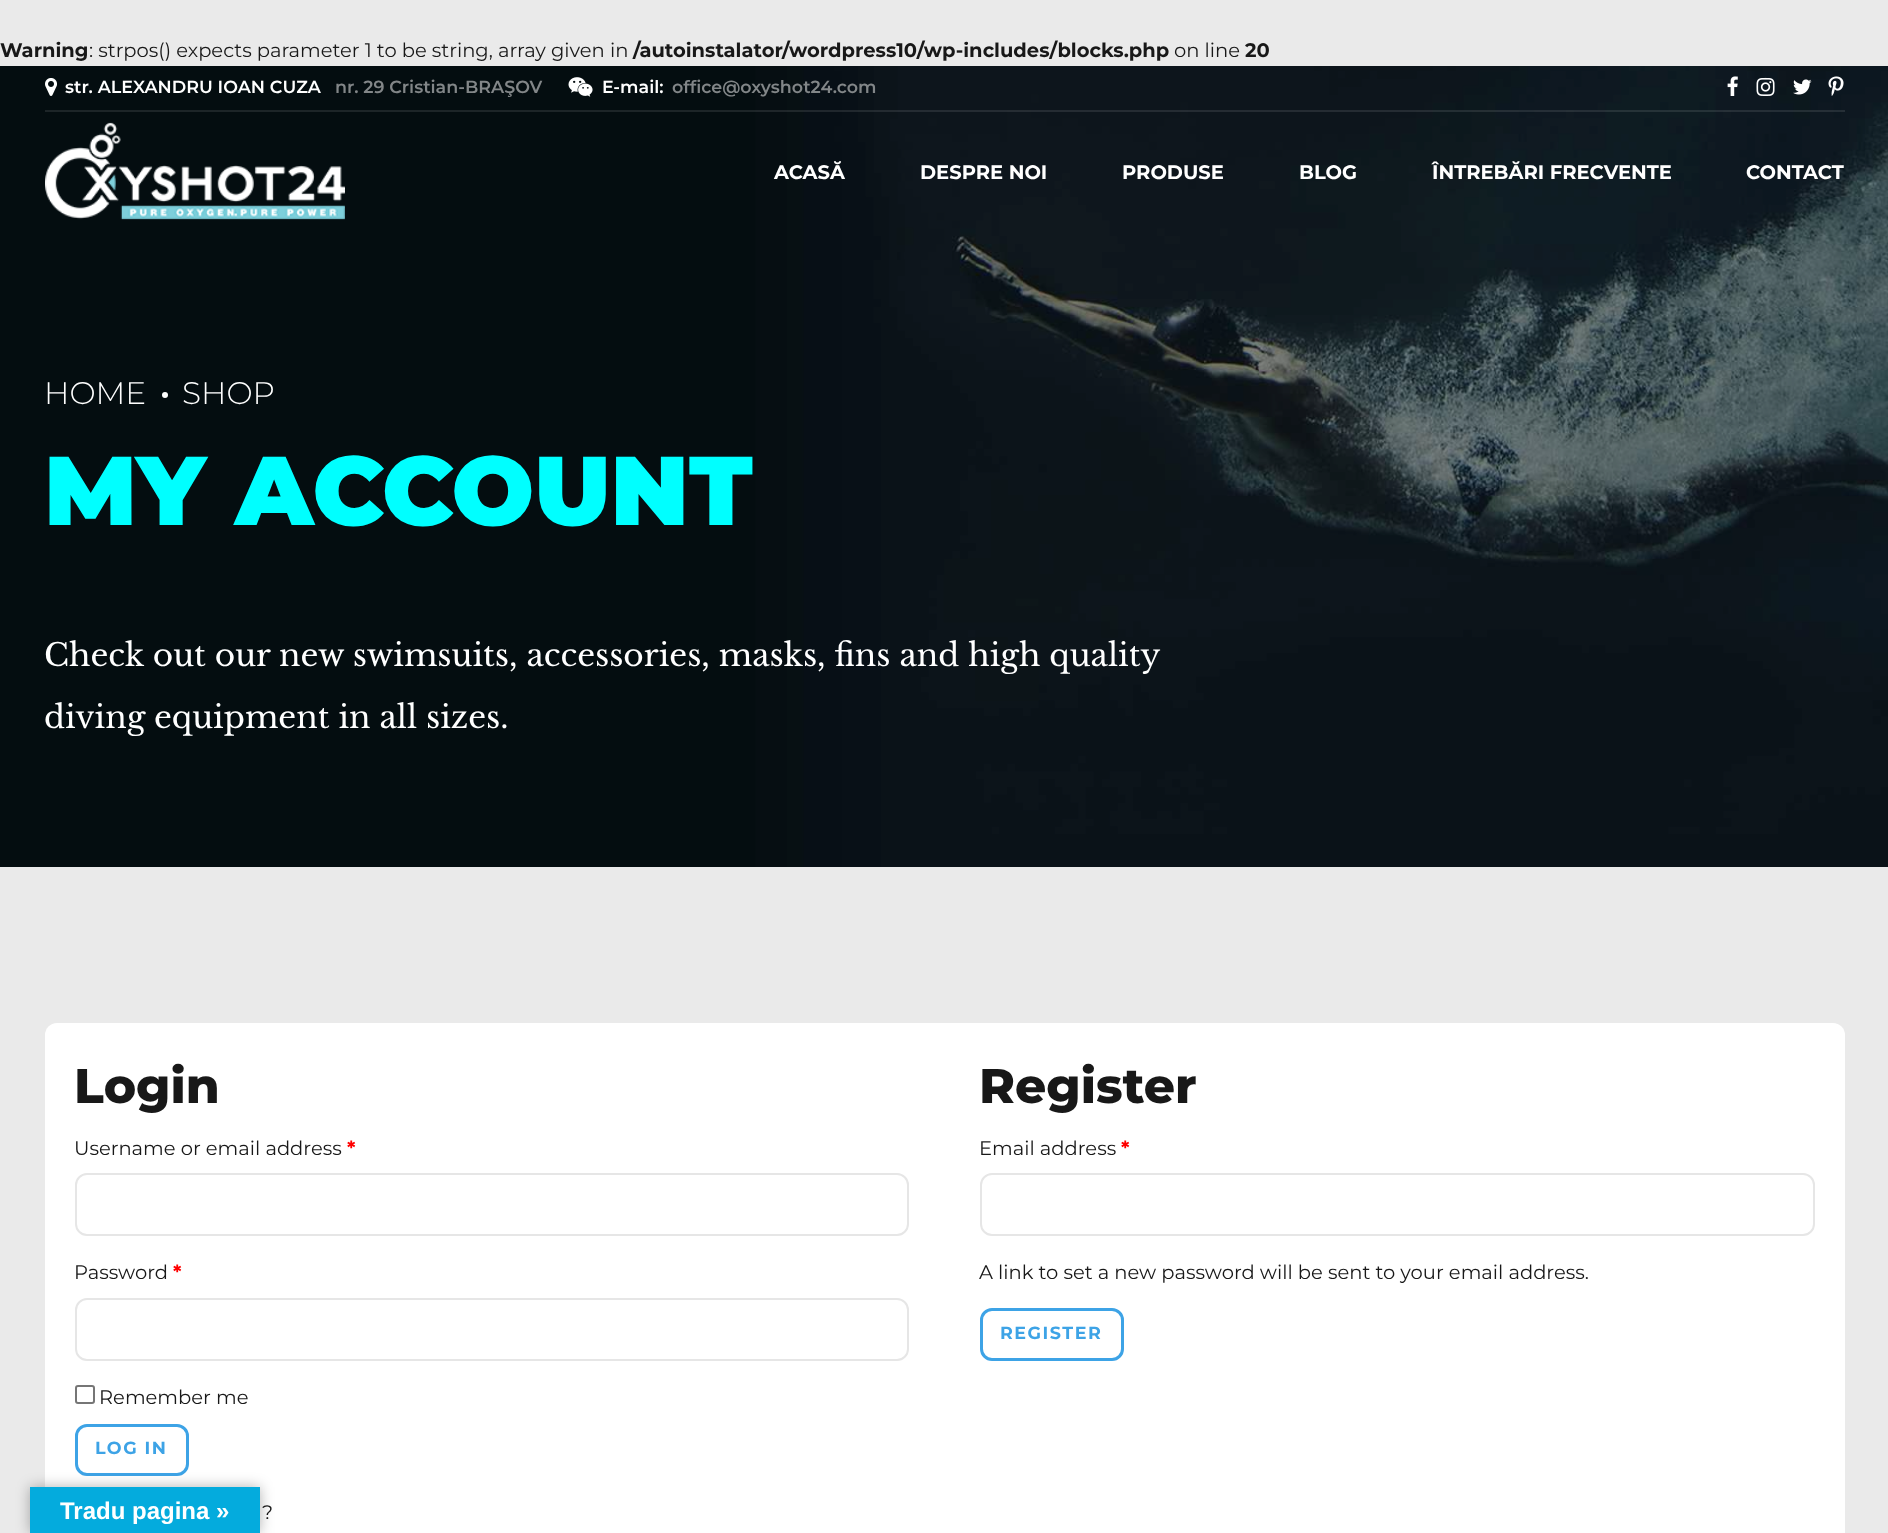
<!DOCTYPE html>
<meta charset="utf-8">
<style>body { margin: 0 } canvas { display: block }</style>
<canvas id="canvas" width="1888" height="1533"></canvas>
<script type="module">
  const canvas = document.getElementById("canvas");
  const ctx = canvas.getContext("2d");
  ctx.miterLimit = 4;
  ctx.fontKerning = "normal";
  async function loadImage(src) {
    const img = new Image();
    img.src = src;
    await img.decode();
    return img;
  }

  ctx.fillStyle = "#eaeaea";
  ctx.fillRect(0, 0, 1888, 1533);
  ctx.font = "bold 19.5px Montserrat";
  ctx.fillStyle = "#181818";
  ctx.fillText("Warning", 0, 57);
  ctx.font = "19.5px Montserrat";
  ctx.fillText(": strpos() expects parameter 1 to be string, array given in", 89, 57);
  ctx.font = "bold 19.5px Montserrat";
  ctx.fillText("/autoinstalator/wordpress10/wp-includes/blocks.php", 633, 57);
  ctx.font = "19.5px Montserrat";
  ctx.fillText("on line", 1174, 57);
  ctx.font = "bold 19.5px Montserrat";
  ctx.fillText("20", 1245, 57);
  ctx.drawImage(await loadImage("img8.png"), 0, 66, 1888, 801);
  ctx.fillStyle = "rgba(255, 255, 255, 0.1)";
  ctx.fillRect(45, 110, 1262, 2);
  ctx.drawImage(await loadImage("img1.png"), 45, 78, 12, 18);
  ctx.font = "600 17.5px Montserrat";
  ctx.fillStyle = "#ffffff";
  ctx.fillText("str. ALEXANDRU IOAN CUZA", 65, 93);
  ctx.fillStyle = "#828688";
  ctx.fillText("nr. 29 Cristian-BRAŞOV", 335, 93);
  ctx.drawImage(await loadImage("img2.png"), 568, 77, 25, 20);
  ctx.fillStyle = "#ffffff";
  ctx.fillText("E-mail:", 602, 93);
  ctx.fillStyle = "#828688";
  ctx.fillText("office@oxyshot24.com", 672, 93);
  ctx.fillStyle = "rgba(255, 255, 255, 0.1)";
  ctx.fillRect(1307, 110, 538, 2);
  ctx.drawImage(await loadImage("img3.png"), 1727, 76, 11, 20);
  ctx.drawImage(await loadImage("img4.png"), 1756, 77, 19, 19);
  ctx.drawImage(await loadImage("img5.png"), 1793, 79, 19, 16);
  ctx.drawImage(await loadImage("img6.png"), 1828, 76, 16, 20);
  ctx.drawImage(await loadImage("img7.png"), 45, 122, 300, 98);
  ctx.font = "bold 19.5px Montserrat";
  ctx.fillStyle = "#ffffff";
  ctx.fillText("ACASĂ", 774, 179);
  ctx.fillText("DESPRE NOI", 920, 179);
  ctx.fillText("PRODUSE", 1122, 179);
  ctx.fillText("BLOG", 1299, 179);
  ctx.fillText("ÎNTREBĂRI FRECVENTE", 1432, 179);
  ctx.fillText("CONTACT", 1746, 179);
  ctx.font = "300 31.2px Montserrat";
  ctx.fillText("HOME", 44, 404);
  ctx.beginPath();
  ctx.arc(165, 395, 3, 0, Math.PI * 2);
  ctx.fill();
  ctx.fillText("SHOP", 182, 404);
  ctx.font = "900 97.5px Montserrat";
  ctx.fillStyle = "#00ffff";
  ctx.fillText("MY ACCOUNT", 44, 525);
  ctx.font = "31.2px Libre Baskerville";
  ctx.fillStyle = "#ffffff";
  ctx.fillText("Check out our new swimsuits, accessories, masks, fins and high quality", 44, 666);
  ctx.fillText("diving equipment in all sizes.", 44, 728);
  ctx.beginPath();
  ctx.roundRect(45, 1023, 1800, 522, 12);
  ctx.fill();
  ctx.font = "800 48.75px Montserrat";
  ctx.fillStyle = "#181818";
  ctx.fillText("Login", 74, 1103);
  ctx.font = "19.5px Montserrat";
  ctx.fillText("Username or email address", 74, 1155);
  ctx.font = "bold 19.5px Montserrat";
  ctx.fillStyle = "#ff0000";
  ctx.fillText("*", 347, 1155);
  ctx.beginPath();
  ctx.roundRect(76, 1174, 832, 61, 11);
  ctx.strokeStyle = "#e6e6e6";
  ctx.lineWidth = 2;
  ctx.stroke();
  ctx.font = "19.5px Montserrat";
  ctx.fillStyle = "#181818";
  ctx.fillText("Password", 74, 1279);
  ctx.font = "bold 19.5px Montserrat";
  ctx.fillStyle = "#ff0000";
  ctx.fillText("*", 173, 1279);
  ctx.beginPath();
  ctx.roundRect(76, 1299, 832, 61, 11);
  ctx.stroke();
  ctx.beginPath();
  ctx.roundRect(76, 1386, 18, 17, 2);
  ctx.strokeStyle = "#767676";
  ctx.stroke();
  ctx.font = "19.5px Montserrat";
  ctx.fillStyle = "#181818";
  ctx.fillText("Remember me", 99, 1404);
  ctx.beginPath();
  ctx.roundRect(76.5, 1425.5, 111, 49, 10.5);
  ctx.strokeStyle = "#3da3e6";
  ctx.lineWidth = 3;
  ctx.stroke();
  ctx.letterSpacing = "1.5px";
  ctx.font = "bold 17.5px Montserrat";
  ctx.fillStyle = "#3da3e6";
  ctx.fillText("LOG IN", 95, 1454);
  ctx.letterSpacing = "0px";
  ctx.font = "19.5px Montserrat";
  ctx.fillStyle = "#181818";
  ctx.fillText("?", 262, 1519);
  ctx.font = "800 48.75px Montserrat";
  ctx.fillText("Register", 979, 1103);
  ctx.font = "19.5px Montserrat";
  ctx.fillText("Email address", 979, 1155);
  ctx.font = "bold 19.5px Montserrat";
  ctx.fillStyle = "#ff0000";
  ctx.fillText("*", 1121, 1155);
  ctx.beginPath();
  ctx.roundRect(981, 1174, 833, 61, 11);
  ctx.strokeStyle = "#e6e6e6";
  ctx.lineWidth = 2;
  ctx.stroke();
  ctx.font = "19.5px Montserrat";
  ctx.fillStyle = "#181818";
  ctx.fillText("A link to set a new password will be sent to your email address.", 979, 1279);
  ctx.beginPath();
  ctx.roundRect(981.5, 1309.5, 141, 50, 10.5);
  ctx.strokeStyle = "#3da3e6";
  ctx.lineWidth = 3;
  ctx.stroke();
  ctx.letterSpacing = "1.5px";
  ctx.font = "bold 17.5px Montserrat";
  ctx.fillStyle = "#3da3e6";
  ctx.fillText("REGISTER", 1000, 1339);
  ctx.fillStyle = "rgba(0, 0, 0, 0.3)";
  ctx.filter = "blur(7px)";
  ctx.beginPath();
  ctx.rect(30, 1487, 230, 46);
  ctx.fill();
  ctx.filter = "none";
  ctx.fillStyle = "#04abdd";
  ctx.fillRect(30, 1487, 230, 46);
  ctx.letterSpacing = "0px";
  ctx.font = "bold 24px Liberation Sans";
  ctx.fillStyle = "#ffffff";
  ctx.fillText("Tradu pagina »", 60, 1519);
</script>
